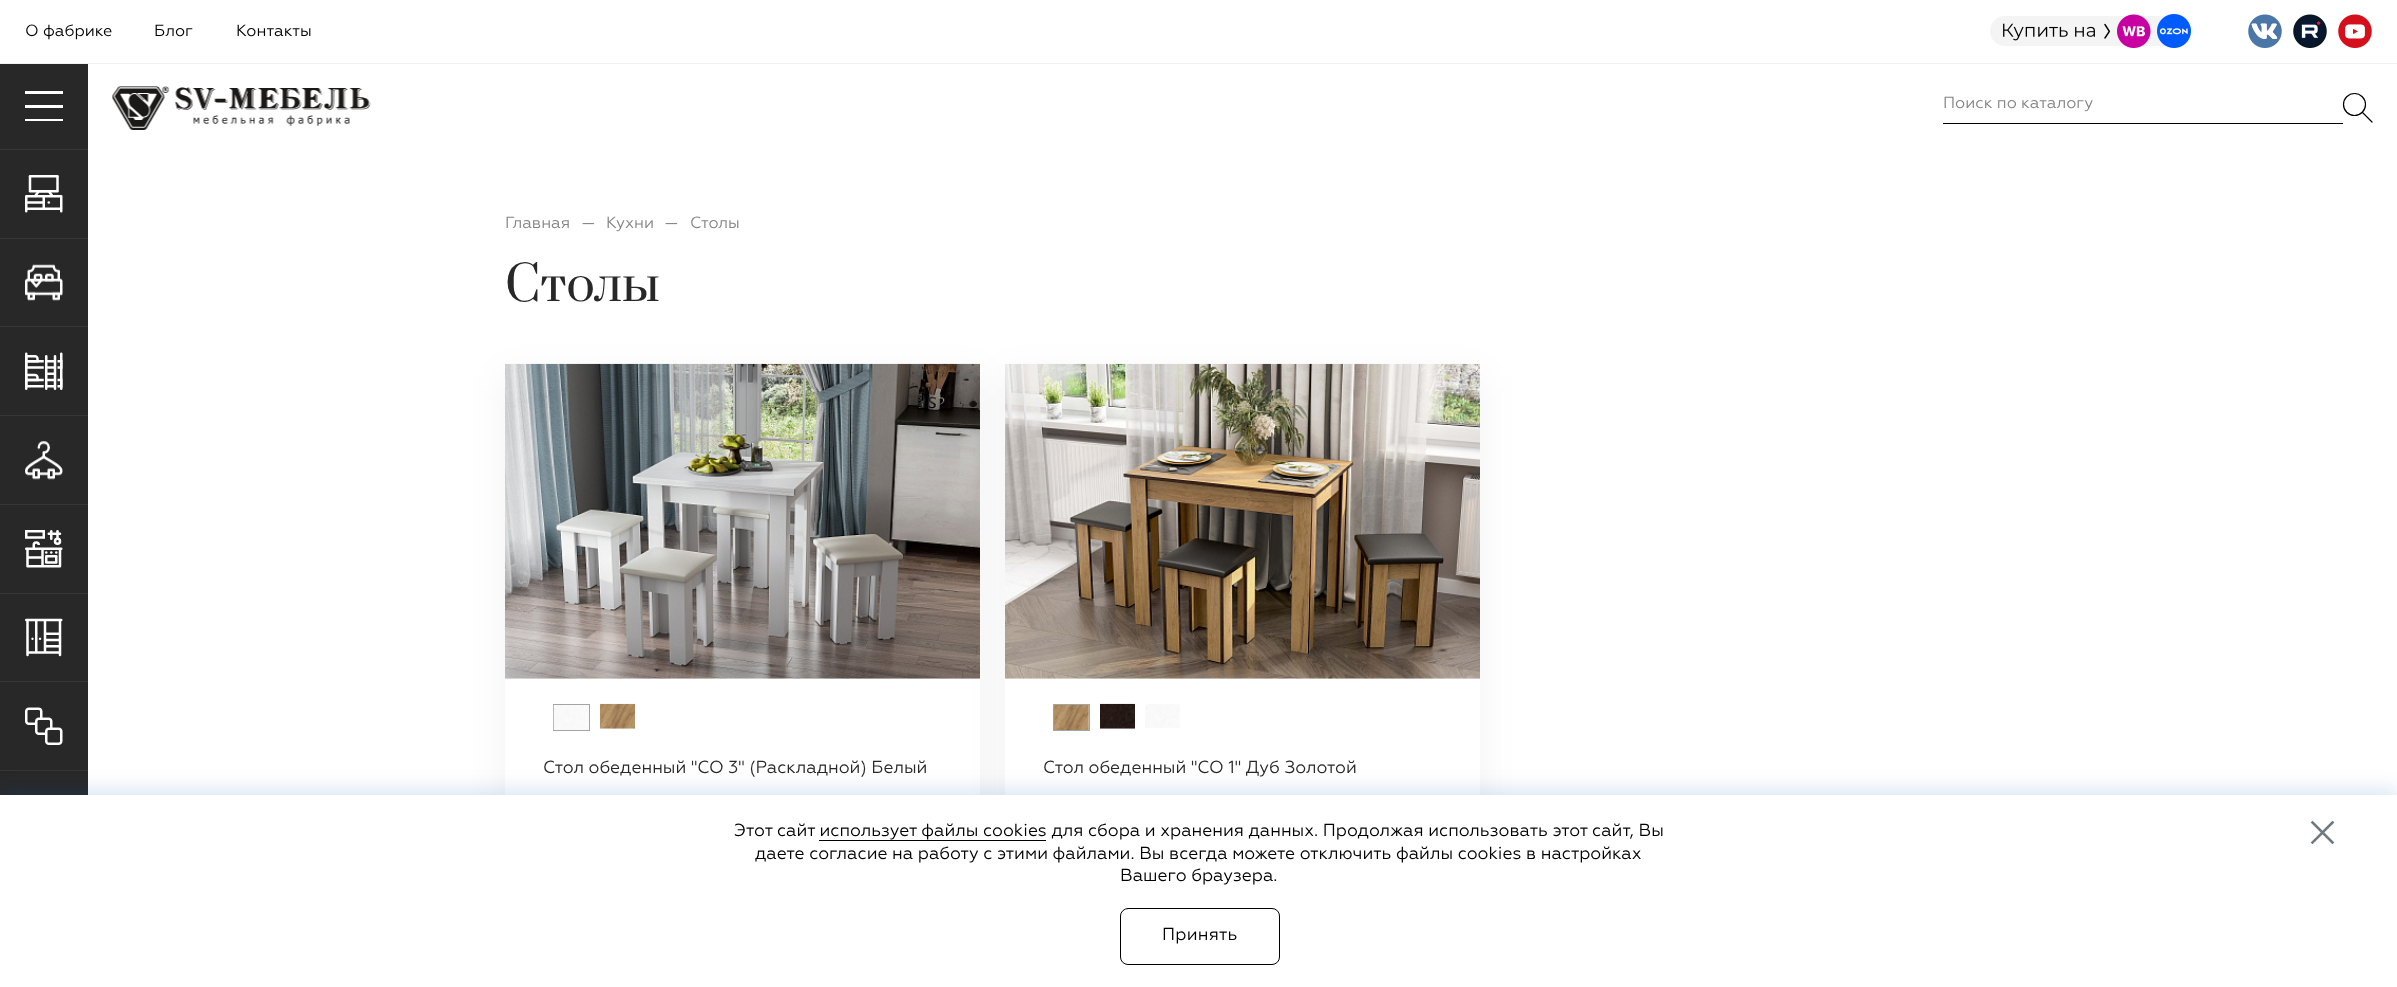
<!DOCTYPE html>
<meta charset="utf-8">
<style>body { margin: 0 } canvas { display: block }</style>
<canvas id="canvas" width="2397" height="987"></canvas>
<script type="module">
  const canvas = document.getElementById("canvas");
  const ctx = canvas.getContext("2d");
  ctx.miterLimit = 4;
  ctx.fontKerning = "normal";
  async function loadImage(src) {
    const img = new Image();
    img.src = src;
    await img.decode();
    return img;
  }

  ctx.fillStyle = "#ffffff";
  ctx.fillRect(0, 0, 2397, 987);
  ctx.fillStyle = "#f0f0f0";
  ctx.fillRect(0, 63, 2397, 1);
  ctx.font = "16.25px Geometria";
  ctx.fillStyle = "#000000";
  ctx.fillText("О фабрике", 25, 36);
  ctx.fillText("Блог", 154, 36);
  ctx.fillText("Контакты", 236, 36);
  ctx.drawImage(await loadImage("img3.png"), 1990, 16, 176, 30);
  ctx.drawImage(await loadImage("img1.png"), 2117, 14, 34, 34);
  ctx.drawImage(await loadImage("img2.png"), 2157, 14, 34, 34);
  ctx.drawImage(await loadImage("img4.png"), 2248, 14, 34, 34);
  ctx.drawImage(await loadImage("img5.png"), 2293, 14, 34, 34);
  ctx.drawImage(await loadImage("img6.png"), 2338, 14, 34, 34);
  ctx.fillStyle = "#282828";
  ctx.fillRect(0, 64, 88, 731);
  ctx.fillStyle = "#ffffff";
  ctx.fillRect(25, 91, 38, 3);
  ctx.fillRect(25, 105, 38, 3);
  ctx.fillRect(25, 119, 38, 2);
  ctx.fillStyle = "#373737";
  ctx.fillRect(0, 149, 88, 1);
  ctx.fillRect(0, 238, 88, 1);
  ctx.drawImage(await loadImage("img7.png"), 25, 175, 38, 38);
  ctx.fillRect(0, 326, 88, 1);
  ctx.drawImage(await loadImage("img8.png"), 24, 264, 39, 37);
  ctx.fillRect(0, 415, 88, 1);
  ctx.drawImage(await loadImage("img9.png"), 25, 352, 38, 38);
  ctx.fillRect(0, 504, 88, 1);
  ctx.drawImage(await loadImage("img10.png"), 25, 441, 38, 39);
  ctx.fillRect(0, 593, 88, 1);
  ctx.drawImage(await loadImage("img11.png"), 25, 530, 38, 38);
  ctx.fillRect(0, 681, 88, 1);
  ctx.drawImage(await loadImage("img12.png"), 25, 618, 38, 39);
  ctx.fillRect(0, 770, 88, 1);
  ctx.drawImage(await loadImage("img13.png"), 25, 707, 38, 38);
  ctx.drawImage(await loadImage("img14.png"), 112, 86, 259, 44);
  ctx.fillStyle = "#000000";
  ctx.fillRect(1943, 123, 400, 1);
  ctx.fillStyle = "#848484";
  ctx.fillText("Поиск по каталогу", 1943, 108);
  ctx.beginPath();
  ctx.arc(2354.5, 104.5, 11, 0, Math.PI * 2);
  ctx.strokeStyle = "#000000";
  ctx.lineWidth = 1.2;
  ctx.stroke();
  ctx.beginPath();
  ctx.moveTo(2372, 122);
  ctx.lineTo(2362.5, 112.5);
  ctx.lineCap = "round";
  ctx.lineJoin = "round";
  ctx.stroke();
  ctx.fillText("Главная", 505, 228);
  ctx.fillText("—", 581, 228);
  ctx.fillText("Кухни", 606, 228);
  ctx.fillText("—", 664, 228);
  ctx.fillText("Столы", 690, 228);
  ctx.font = "47.5px Prata";
  ctx.fillStyle = "#282828";
  ctx.fillText("Столы", 505, 301);
  ctx.fillStyle = "rgba(0, 0, 0, 0.05)";
  ctx.filter = "blur(19px)";
  ctx.beginPath();
  ctx.rect(505, 376, 475, 515);
  ctx.fill();
  ctx.filter = "none";
  ctx.fillStyle = "#ffffff";
  ctx.fillRect(505, 678, 475, 117);
  ctx.drawImage(await loadImage("img15.png"), 505, 363, 475, 316);
  ctx.strokeStyle = "#a4a4a4";
  ctx.lineWidth = 1;
  ctx.lineJoin = "miter";
  ctx.strokeRect(553.5, 704.5, 36, 26);
  ctx.drawImage(await loadImage("img16.png"), 553, 705, 36, 25);
  ctx.drawImage(await loadImage("img17.png"), 600, 703, 35, 26);
  ctx.font = "17.5px Geometria";
  ctx.fillStyle = "#282828";
  ctx.fillText("Стол обеденный \"СО 3\" (Раскладной) Белый", 543, 773);
  ctx.fillStyle = "rgba(0, 0, 0, 0.05)";
  ctx.filter = "blur(19px)";
  ctx.beginPath();
  ctx.rect(1005, 376, 475, 515);
  ctx.fill();
  ctx.filter = "none";
  ctx.fillStyle = "#ffffff";
  ctx.fillRect(1005, 678, 475, 117);
  ctx.drawImage(await loadImage("img18.png"), 1005, 363, 475, 316);
  ctx.strokeRect(1053.5, 704.5, 36, 26);
  ctx.drawImage(await loadImage("img19.png"), 1053, 705, 36, 25);
  ctx.drawImage(await loadImage("img20.png"), 1100, 703, 35, 26);
  ctx.drawImage(await loadImage("img21.png"), 1145, 704, 35, 24);
  ctx.fillStyle = "#282828";
  ctx.fillText("Стол обеденный \"СО 1\" Дуб Золотой", 1043, 773);
  ctx.fillStyle = "rgba(6, 88, 175, 0.15)";
  ctx.filter = "blur(9.5px)";
  ctx.beginPath();
  ctx.rect(0, 789, 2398, 192);
  ctx.fill();
  ctx.filter = "none";
  ctx.fillStyle = "#ffffff";
  ctx.fillRect(0, 795, 2397, 192);
  ctx.fillStyle = "#000000";
  ctx.fillText("Этот сайт использует файлы cookies для сбора и хранения данных. Продолжая использовать этот сайт, Вы", 734, 836);
  ctx.fillRect(819, 840, 227, 1);
  ctx.fillText("даете согласие на работу с этими файлами. Вы всегда можете отключить файлы cookies в настройках", 755, 859);
  ctx.fillText("Вашего браузера.", 1120, 881);
  ctx.beginPath();
  ctx.roundRect(1120.5, 908.5, 159, 56, 7.5);
  ctx.strokeStyle = "#000000";
  ctx.stroke();
  ctx.letterSpacing = "0.25px";
  ctx.fillText("Принять", 1162, 940);
  ctx.beginPath();
  ctx.moveTo(2312.5, 822.5);
  ctx.lineTo(2322.5, 832.5);
  ctx.moveTo(2322.5, 832.5);
  ctx.lineTo(2332.5, 842.5);
  ctx.moveTo(2322.5, 832.5);
  ctx.lineTo(2332.5, 822.5);
  ctx.moveTo(2322.5, 832.5);
  ctx.lineTo(2312.5, 842.5);
  ctx.strokeStyle = "#707980";
  ctx.lineWidth = 2.5;
  ctx.lineCap = "square";
  ctx.lineJoin = "round";
  ctx.stroke();
</script>
